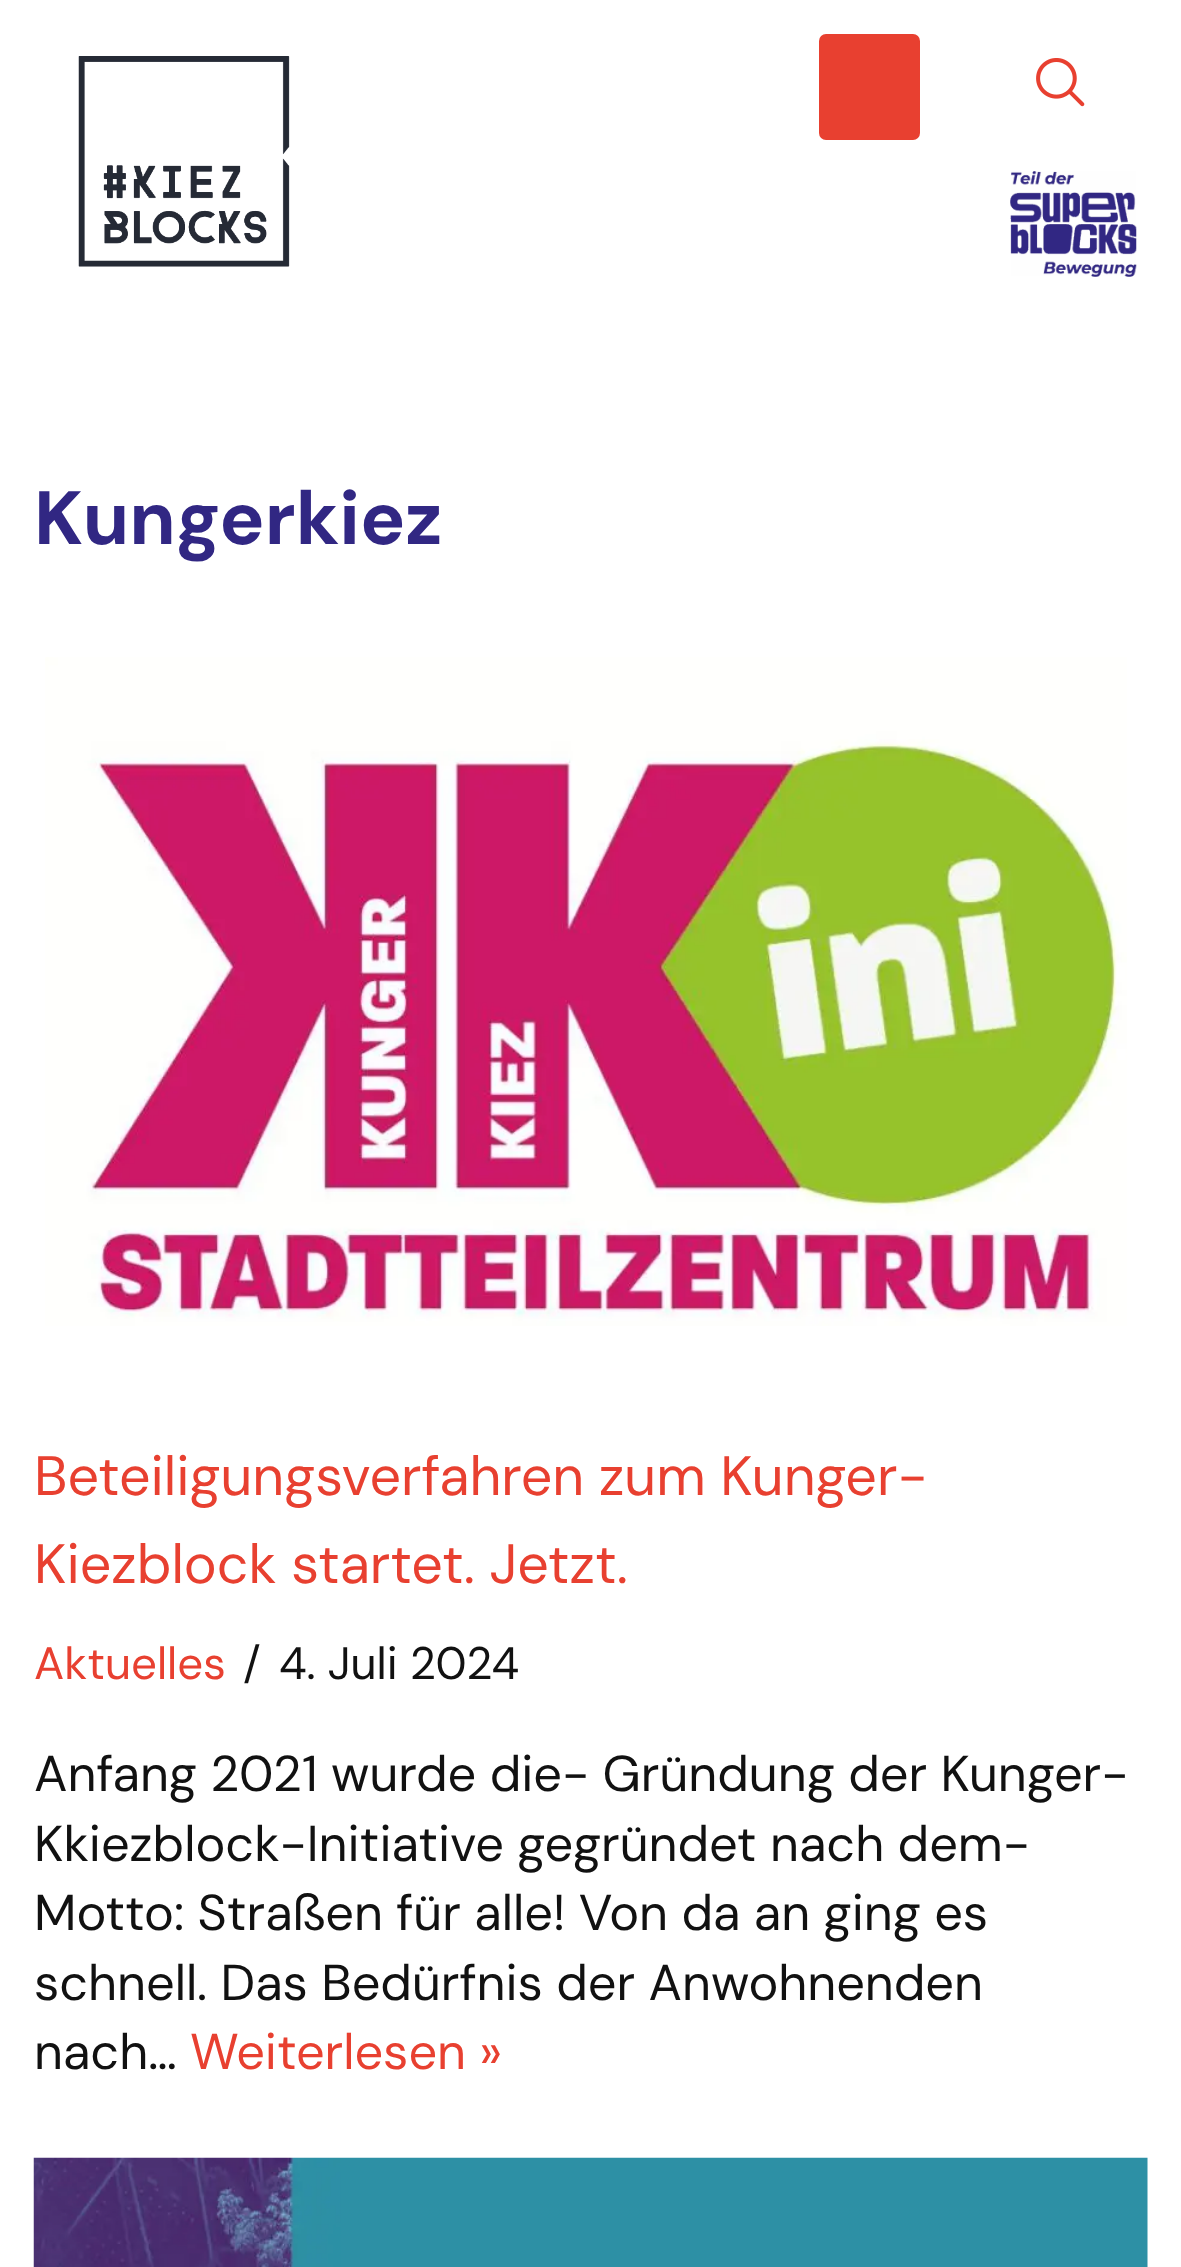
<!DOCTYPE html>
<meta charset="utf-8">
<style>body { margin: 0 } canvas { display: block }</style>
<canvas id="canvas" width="1181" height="2267"></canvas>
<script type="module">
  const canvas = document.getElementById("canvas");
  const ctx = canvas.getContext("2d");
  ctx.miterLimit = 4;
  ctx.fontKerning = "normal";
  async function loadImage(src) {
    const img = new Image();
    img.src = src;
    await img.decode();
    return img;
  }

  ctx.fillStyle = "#ffffff";
  ctx.fillRect(0, 0, 1181, 2267);
  ctx.drawImage(await loadImage("img1.png"), 78, 56, 212, 211);
  ctx.fillStyle = "#e84030";
  ctx.beginPath();
  ctx.roundRect(819, 34, 101, 106, 7);
  ctx.fill();
  ctx.drawImage(await loadImage("img2.png"), 1036, 58, 49, 49);
  ctx.drawImage(await loadImage("img3.png"), 1010, 171, 127, 106);
  ctx.font = "bold 75.5px DM Sans";
  ctx.fillStyle = "#312783";
  ctx.fillText("Kungerkiez", 34, 544);
  ctx.drawImage(await loadImage("img4.png"), 45, 657, 1082, 669);
  ctx.font = "55.5px DM Sans";
  ctx.fillStyle = "#e84030";
  ctx.fillText("Beteiligungsverfahren zum Kunger-", 34, 1495);
  ctx.fillText("Kiezblock startet. Jetzt.", 34, 1583);
  ctx.font = "45.5px DM Sans";
  ctx.fillText("Aktuelles", 34, 1679);
  ctx.fillStyle = "#111111";
  ctx.fillText("/", 243, 1679);
  ctx.fillText("4. Juli 2024", 279, 1679);
  ctx.font = "50.4px DM Sans";
  ctx.fillText("Anfang 2021 wurde die- Gründung der Kunger-", 34, 1791);
  ctx.fillText("Kkiezblock-Initiative gegründet nach dem-", 34, 1861);
  ctx.fillText("Motto: Straßen für alle! Von da an ging es", 34, 1930);
  ctx.fillText("schnell. Das Bedürfnis der Anwohnenden", 34, 2000);
  ctx.fillText("nach…", 34, 2069);
  ctx.fillStyle = "#e84030";
  ctx.fillText("Weiterlesen »", 190, 2069);
  ctx.drawImage(await loadImage("img5.png"), 33, 2157, 1115, 110);
</script>
